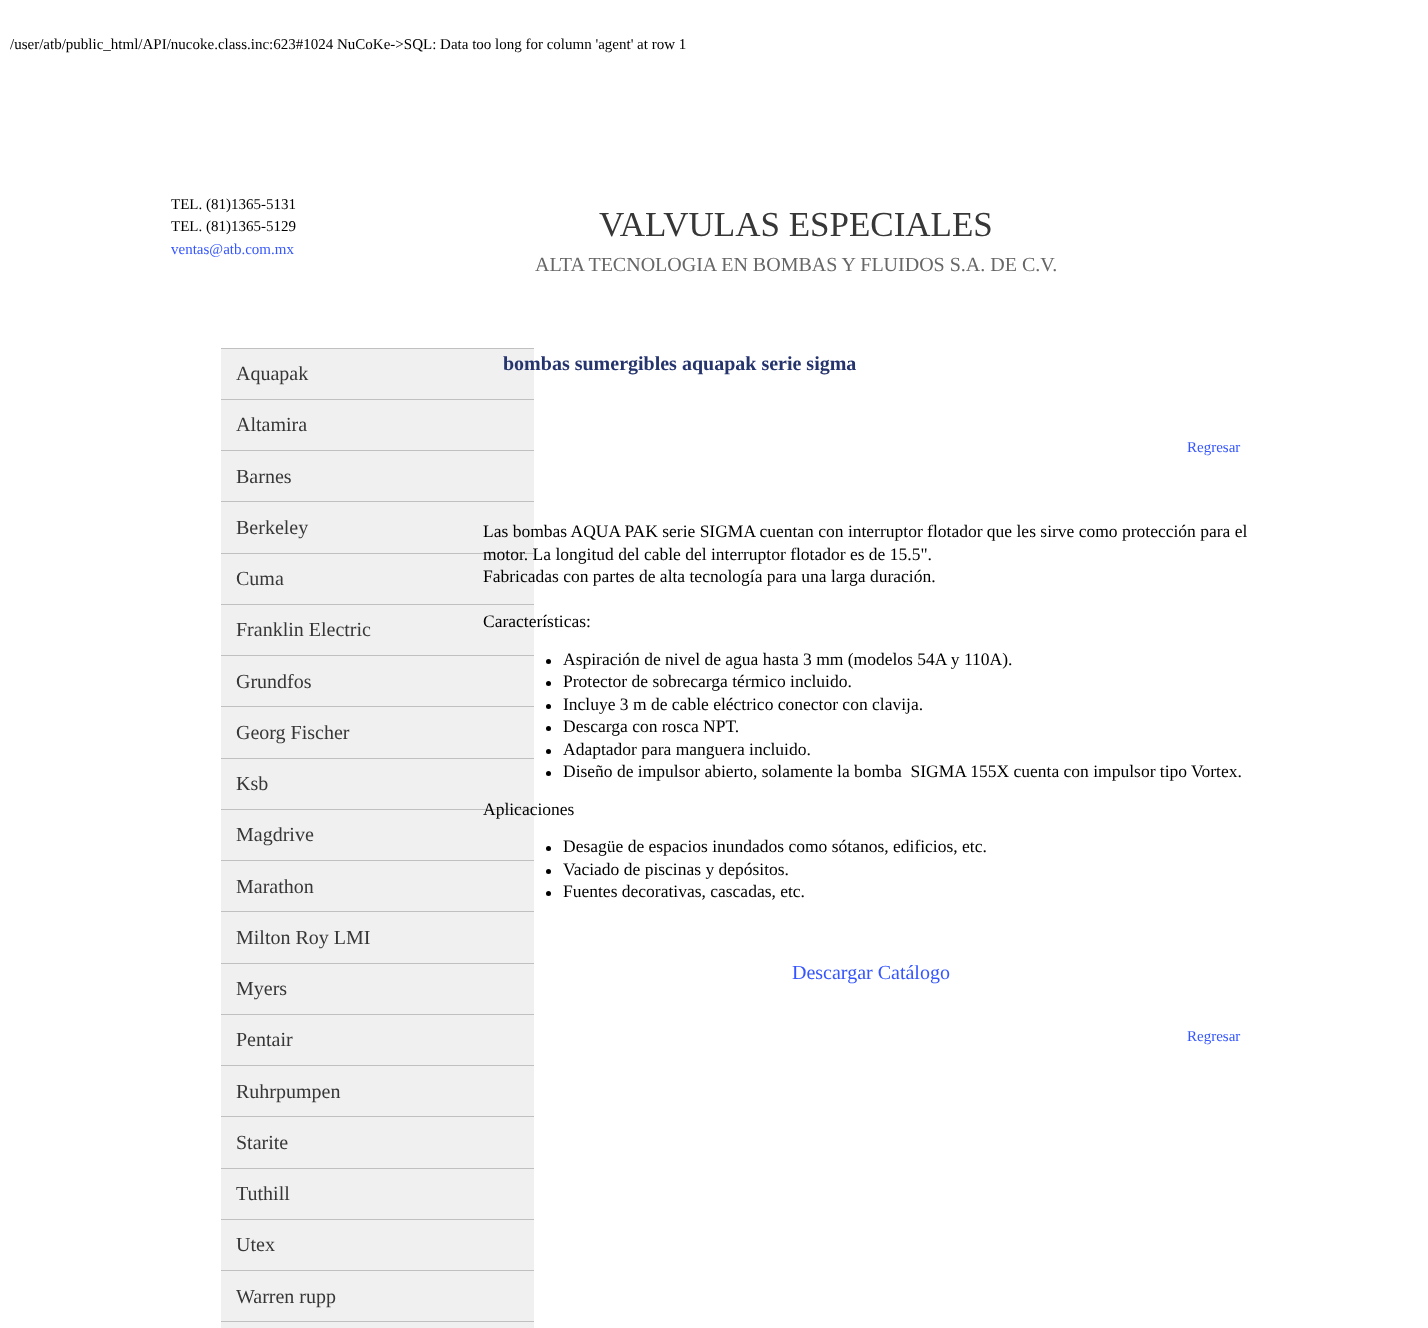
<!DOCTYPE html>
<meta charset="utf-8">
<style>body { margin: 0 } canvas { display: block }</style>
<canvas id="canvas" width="1428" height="1328"></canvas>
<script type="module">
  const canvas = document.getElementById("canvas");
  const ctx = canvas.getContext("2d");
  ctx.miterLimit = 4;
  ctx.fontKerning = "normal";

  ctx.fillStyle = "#ffffff";
  ctx.fillRect(0, 0, 1428, 1328);
  ctx.font = "15px Liberation Serif";
  ctx.fillStyle = "#000000";
  ctx.fillText("/user/atb/public_html/API/nucoke.class.inc:623#1024 NuCoKe->SQL: Data too long for column 'agent' at row 1", 10, 49);
  ctx.fillText("TEL. (81)1365-5131", 171, 209);
  ctx.fillText("TEL. (81)1365-5129", 171, 231);
  ctx.fillStyle = "#3455ff";
  ctx.fillText("ventas@atb.com.mx", 171, 254);
  ctx.font = "35px Liberation Serif";
  ctx.fillStyle = "#373737";
  ctx.fillText("VALVULAS ESPECIALES", 599, 236);
  ctx.font = "20px Liberation Serif";
  ctx.fillStyle = "#676767";
  ctx.fillText("ALTA TECNOLOGIA EN BOMBAS Y FLUIDOS S.A. DE C.V.", 535, 271);
  ctx.fillStyle = "#f0f0f0";
  ctx.fillRect(221, 349, 313, 50);
  ctx.fillStyle = "#c0c0c0";
  ctx.fillRect(221, 348, 313, 1);
  ctx.fillStyle = "#373737";
  ctx.fillText("Aquapak", 236, 380);
  ctx.fillStyle = "#f0f0f0";
  ctx.fillRect(221, 400, 313, 50);
  ctx.fillStyle = "#c0c0c0";
  ctx.fillRect(221, 399, 313, 1);
  ctx.fillStyle = "#373737";
  ctx.fillText("Altamira", 236, 431);
  ctx.fillStyle = "#f0f0f0";
  ctx.fillRect(221, 451, 313, 50);
  ctx.fillStyle = "#c0c0c0";
  ctx.fillRect(221, 450, 313, 1);
  ctx.fillStyle = "#373737";
  ctx.fillText("Barnes", 236, 483);
  ctx.fillStyle = "#f0f0f0";
  ctx.fillRect(221, 502, 313, 51);
  ctx.fillStyle = "#c0c0c0";
  ctx.fillRect(221, 501, 313, 1);
  ctx.fillStyle = "#373737";
  ctx.fillText("Berkeley", 236, 534);
  ctx.fillStyle = "#f0f0f0";
  ctx.fillRect(221, 554, 313, 50);
  ctx.fillStyle = "#c0c0c0";
  ctx.fillRect(221, 553, 313, 1);
  ctx.fillStyle = "#373737";
  ctx.fillText("Cuma", 236, 585);
  ctx.fillStyle = "#f0f0f0";
  ctx.fillRect(221, 605, 313, 50);
  ctx.fillStyle = "#c0c0c0";
  ctx.fillRect(221, 604, 313, 1);
  ctx.fillStyle = "#373737";
  ctx.fillText("Franklin Electric", 236, 636);
  ctx.fillStyle = "#f0f0f0";
  ctx.fillRect(221, 656, 313, 50);
  ctx.fillStyle = "#c0c0c0";
  ctx.fillRect(221, 655, 313, 1);
  ctx.fillStyle = "#373737";
  ctx.fillText("Grundfos", 236, 688);
  ctx.fillStyle = "#f0f0f0";
  ctx.fillRect(221, 707, 313, 51);
  ctx.fillStyle = "#c0c0c0";
  ctx.fillRect(221, 706, 313, 1);
  ctx.fillStyle = "#373737";
  ctx.fillText("Georg Fischer", 236, 739);
  ctx.fillStyle = "#f0f0f0";
  ctx.fillRect(221, 759, 313, 50);
  ctx.fillStyle = "#c0c0c0";
  ctx.fillRect(221, 758, 313, 1);
  ctx.fillStyle = "#373737";
  ctx.fillText("Ksb", 236, 790);
  ctx.fillStyle = "#f0f0f0";
  ctx.fillRect(221, 810, 313, 50);
  ctx.fillStyle = "#c0c0c0";
  ctx.fillRect(221, 809, 313, 1);
  ctx.fillStyle = "#373737";
  ctx.fillText("Magdrive", 236, 841);
  ctx.fillStyle = "#f0f0f0";
  ctx.fillRect(221, 861, 313, 50);
  ctx.fillStyle = "#c0c0c0";
  ctx.fillRect(221, 860, 313, 1);
  ctx.fillStyle = "#373737";
  ctx.fillText("Marathon", 236, 893);
  ctx.fillStyle = "#f0f0f0";
  ctx.fillRect(221, 912, 313, 51);
  ctx.fillStyle = "#c0c0c0";
  ctx.fillRect(221, 911, 313, 1);
  ctx.fillStyle = "#373737";
  ctx.fillText("Milton Roy LMI", 236, 944);
  ctx.fillStyle = "#f0f0f0";
  ctx.fillRect(221, 964, 313, 50);
  ctx.fillStyle = "#c0c0c0";
  ctx.fillRect(221, 963, 313, 1);
  ctx.fillStyle = "#373737";
  ctx.fillText("Myers", 236, 995);
  ctx.fillStyle = "#f0f0f0";
  ctx.fillRect(221, 1015, 313, 50);
  ctx.fillStyle = "#c0c0c0";
  ctx.fillRect(221, 1014, 313, 1);
  ctx.fillStyle = "#373737";
  ctx.fillText("Pentair", 236, 1046);
  ctx.fillStyle = "#f0f0f0";
  ctx.fillRect(221, 1066, 313, 50);
  ctx.fillStyle = "#c0c0c0";
  ctx.fillRect(221, 1065, 313, 1);
  ctx.fillStyle = "#373737";
  ctx.fillText("Ruhrpumpen", 236, 1098);
  ctx.fillStyle = "#f0f0f0";
  ctx.fillRect(221, 1117, 313, 51);
  ctx.fillStyle = "#c0c0c0";
  ctx.fillRect(221, 1116, 313, 1);
  ctx.fillStyle = "#373737";
  ctx.fillText("Starite", 236, 1149);
  ctx.fillStyle = "#f0f0f0";
  ctx.fillRect(221, 1169, 313, 50);
  ctx.fillStyle = "#c0c0c0";
  ctx.fillRect(221, 1168, 313, 1);
  ctx.fillStyle = "#373737";
  ctx.fillText("Tuthill", 236, 1200);
  ctx.fillStyle = "#f0f0f0";
  ctx.fillRect(221, 1220, 313, 50);
  ctx.fillStyle = "#c0c0c0";
  ctx.fillRect(221, 1219, 313, 1);
  ctx.fillStyle = "#373737";
  ctx.fillText("Utex", 236, 1251);
  ctx.fillStyle = "#f0f0f0";
  ctx.fillRect(221, 1271, 313, 50);
  ctx.fillStyle = "#c0c0c0";
  ctx.fillRect(221, 1270, 313, 1);
  ctx.fillStyle = "#373737";
  ctx.fillText("Warren rupp", 236, 1303);
  ctx.fillStyle = "#f0f0f0";
  ctx.fillRect(221, 1322, 313, 6);
  ctx.fillStyle = "#c0c0c0";
  ctx.fillRect(221, 1321, 313, 1);
  ctx.font = "bold 20px Liberation Serif";
  ctx.fillStyle = "#25346d";
  ctx.fillText("bombas sumergibles aquapak serie sigma", 503, 370);
  ctx.font = "15px Liberation Serif";
  ctx.fillStyle = "#3455ff";
  ctx.fillText("Regresar", 1187, 452);
  ctx.font = "17.5px Liberation Serif";
  ctx.fillStyle = "#000000";
  ctx.fillText("Las bombas AQUA PAK serie SIGMA cuentan con interruptor flotador que les sirve como protección para el", 483, 537);
  ctx.fillText("motor. La longitud del cable del interruptor flotador es de 15.5\".", 483, 560);
  ctx.fillText("Fabricadas con partes de alta tecnología para una larga duración.", 483, 582);
  ctx.fillText("Características:", 483, 627);
  ctx.beginPath();
  ctx.arc(548.5, 661.5, 2.5, 0, Math.PI * 2);
  ctx.fill();
  ctx.fillText("Aspiración de nivel de agua hasta 3 mm (modelos 54A y 110A).", 563, 665);
  ctx.beginPath();
  ctx.arc(548.5, 683.5, 2.5, 0, Math.PI * 2);
  ctx.fill();
  ctx.fillText("Protector de sobrecarga térmico incluido.", 563, 687);
  ctx.beginPath();
  ctx.arc(548.5, 706.5, 2.5, 0, Math.PI * 2);
  ctx.fill();
  ctx.fillText("Incluye 3 m de cable eléctrico conector con clavija.", 563, 710);
  ctx.beginPath();
  ctx.arc(548.5, 728.5, 2.5, 0, Math.PI * 2);
  ctx.fill();
  ctx.fillText("Descarga con rosca NPT.", 563, 732);
  ctx.beginPath();
  ctx.arc(548.5, 751.5, 2.5, 0, Math.PI * 2);
  ctx.fill();
  ctx.fillText("Adaptador para manguera incluido.", 563, 755);
  ctx.beginPath();
  ctx.arc(548.5, 773.5, 2.5, 0, Math.PI * 2);
  ctx.fill();
  ctx.fillText("Diseño de impulsor abierto, solamente la bomba  SIGMA 155X cuenta con impulsor tipo Vortex.", 563, 777);
  ctx.fillText("Aplicaciones", 483, 815);
  ctx.beginPath();
  ctx.arc(548.5, 848.5, 2.5, 0, Math.PI * 2);
  ctx.fill();
  ctx.fillText("Desagüe de espacios inundados como sótanos, edificios, etc.", 563, 852);
  ctx.beginPath();
  ctx.arc(548.5, 871.5, 2.5, 0, Math.PI * 2);
  ctx.fill();
  ctx.fillText("Vaciado de piscinas y depósitos.", 563, 875);
  ctx.beginPath();
  ctx.arc(548.5, 893.5, 2.5, 0, Math.PI * 2);
  ctx.fill();
  ctx.fillText("Fuentes decorativas, cascadas, etc.", 563, 897);
  ctx.font = "20px Liberation Serif";
  ctx.fillStyle = "#3455ff";
  ctx.fillText("Descargar Catálogo", 792, 979);
  ctx.font = "15px Liberation Serif";
  ctx.fillText("Regresar", 1187, 1041);
</script>
